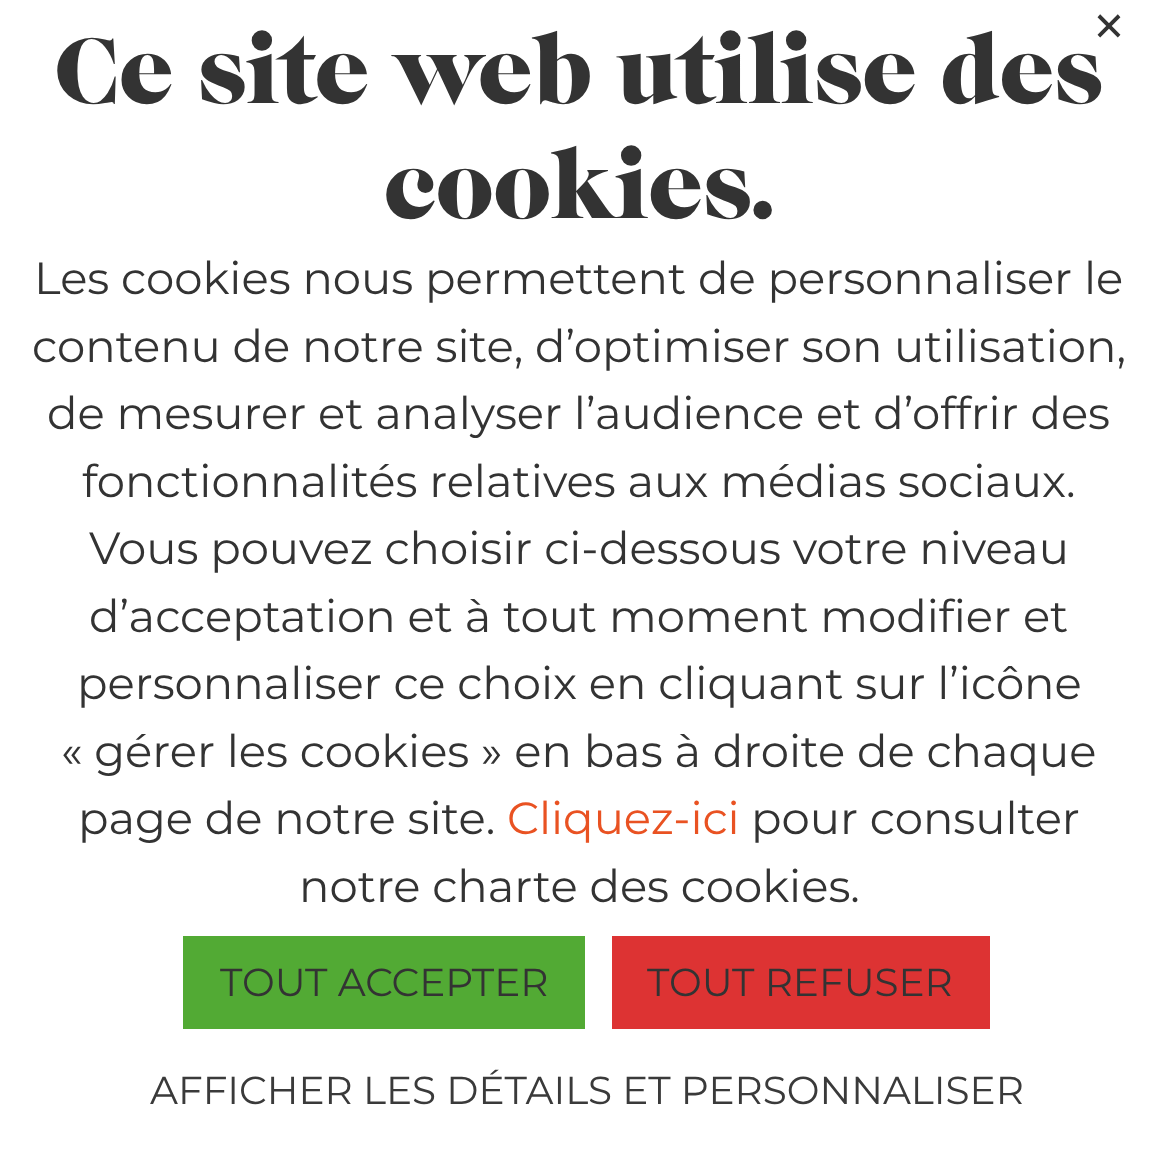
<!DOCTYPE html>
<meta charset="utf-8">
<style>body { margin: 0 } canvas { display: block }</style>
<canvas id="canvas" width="1157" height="1173"></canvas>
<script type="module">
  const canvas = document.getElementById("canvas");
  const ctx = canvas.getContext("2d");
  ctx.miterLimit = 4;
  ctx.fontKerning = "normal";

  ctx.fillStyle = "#ffffff";
  ctx.fillRect(0, 0, 1157, 1173);
  ctx.font = "66px Montserrat";
  ctx.fillStyle = "#333333";
  ctx.fillText("×", 1090, 49);
  ctx.font = "45px Montserrat";
  ctx.fillText("Les cookies nous permettent de personnaliser le", 34, 294);
  ctx.fillText("contenu de notre site, d’optimiser son utilisation,", 32, 362);
  ctx.fillText("de mesurer et analyser l’audience et d’offrir des", 47, 429);
  ctx.fillText("fonctionnalités relatives aux médias sociaux.", 82, 497);
  ctx.fillText("Vous pouvez choisir ci-dessous votre niveau", 89, 564);
  ctx.fillText("d’acceptation et à tout moment modifier et", 89, 632);
  ctx.fillText("personnaliser ce choix en cliquant sur l’icône", 77, 699);
  ctx.fillText("« gérer les cookies » en bas à droite de chaque", 61, 767);
  ctx.fillText("page de notre site.", 78, 834);
  ctx.fillStyle = "#e95222";
  ctx.fillText("Cliquez-ici", 507, 834);
  ctx.fillStyle = "#333333";
  ctx.fillText("pour consulter", 751, 834);
  ctx.fillText("notre charte des cookies.", 299, 902);
  ctx.fillStyle = "#52aa34";
  ctx.fillRect(183, 936, 402, 93);
  ctx.font = "39px Montserrat";
  ctx.fillStyle = "#333333";
  ctx.fillText("TOUT ACCEPTER", 220, 996);
  ctx.fillStyle = "#dd3333";
  ctx.fillRect(612, 936, 378, 93);
  ctx.fillStyle = "#333333";
  ctx.fillText("TOUT REFUSER", 647, 996);
  ctx.fillStyle = "#3a3a3a";
  ctx.fillText("AFFICHER LES DÉTAILS ET PERSONNALISER", 150, 1104);
  ctx.font = "96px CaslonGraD";
  ctx.fillStyle = "#333333";
  ctx.fillText("Ce site web utilise des", 55, 103);
  ctx.fillText("cookies.", 384, 218);
</script>
